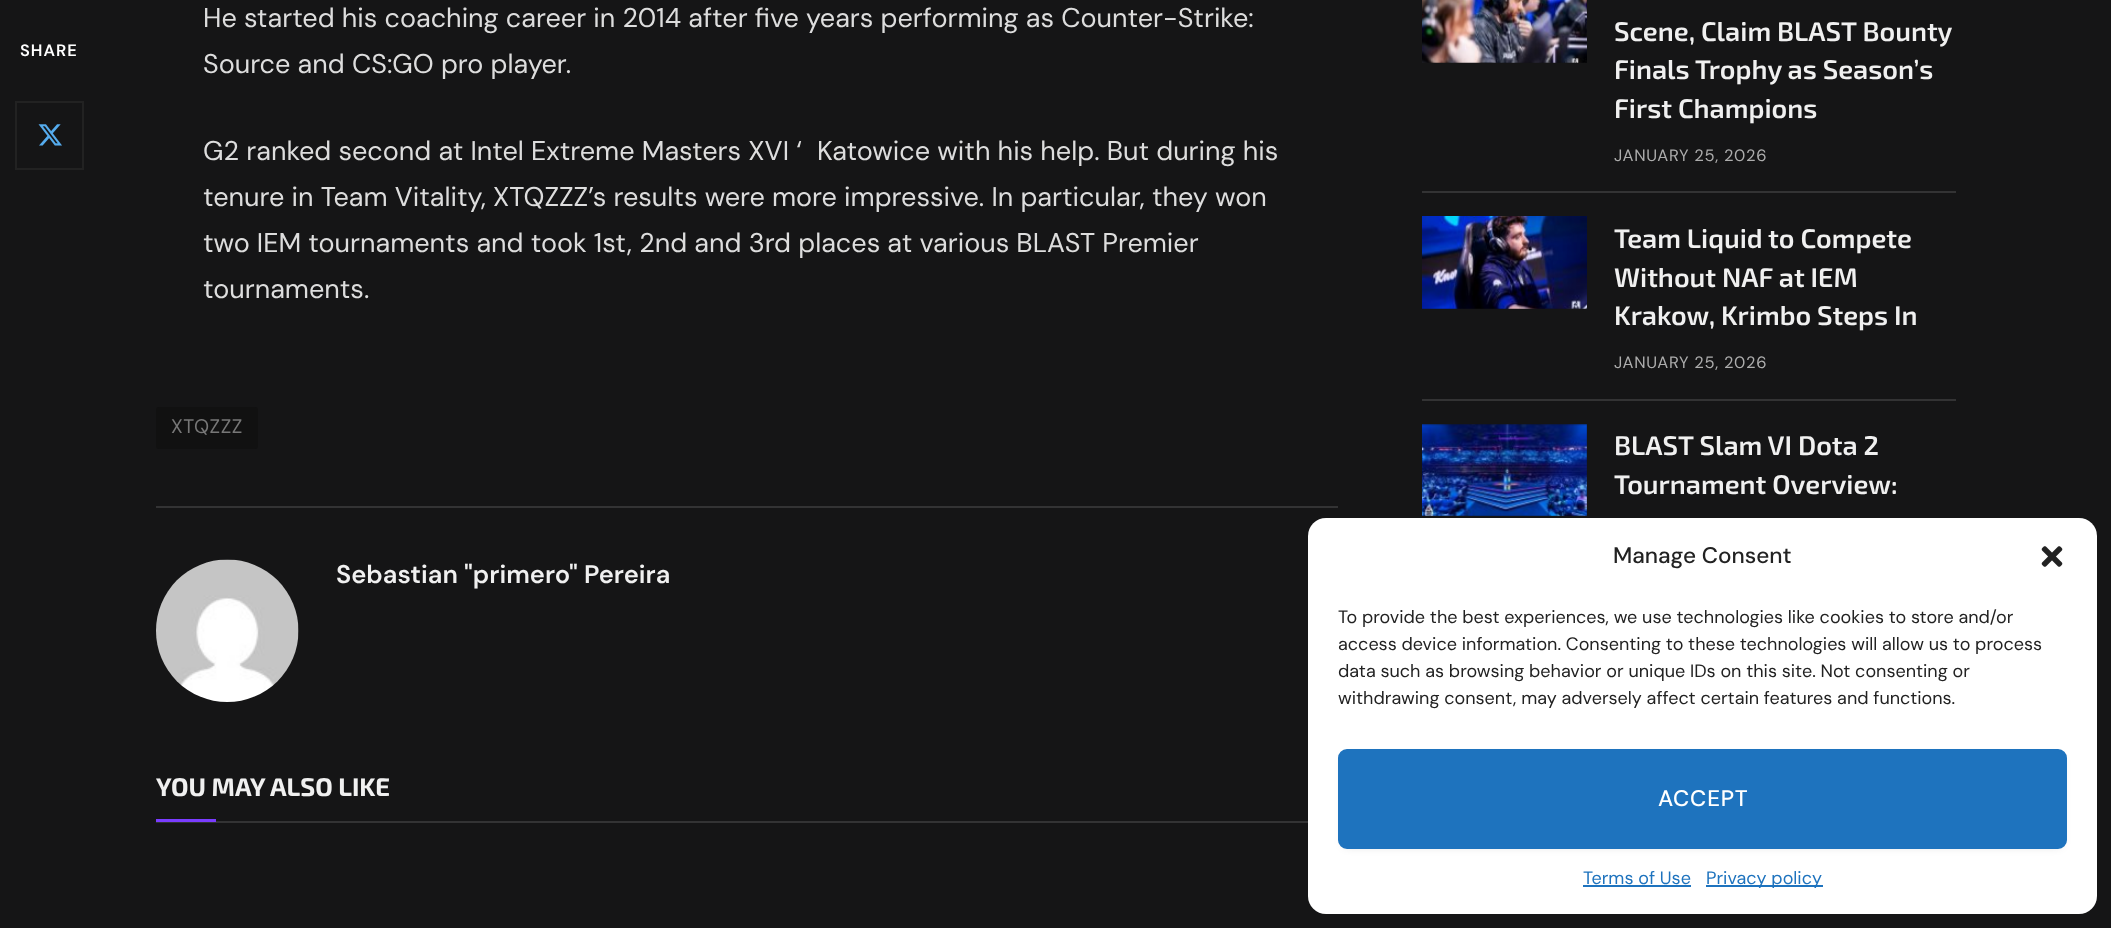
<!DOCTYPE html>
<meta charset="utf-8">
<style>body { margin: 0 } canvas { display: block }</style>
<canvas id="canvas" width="2111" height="928"></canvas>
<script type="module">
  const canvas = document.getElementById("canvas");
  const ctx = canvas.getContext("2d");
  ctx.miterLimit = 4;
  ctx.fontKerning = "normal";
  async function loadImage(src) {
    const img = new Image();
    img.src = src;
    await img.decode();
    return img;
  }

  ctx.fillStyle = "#151516";
  ctx.fillRect(0, 0, 2111, 928);
  ctx.letterSpacing = "1px";
  ctx.font = "600 16.5px DM Sans";
  ctx.fillStyle = "#ffffff";
  ctx.fillText("SHARE", 20, 56);
  ctx.strokeStyle = "#222222";
  ctx.lineWidth = 2;
  ctx.strokeRect(16, 102, 67, 67);
  ctx.drawImage(await loadImage("img1.png"), 38, 124, 24, 22);
  ctx.letterSpacing = "0px";
  ctx.font = "27px DM Sans";
  ctx.fillStyle = "#dddddd";
  ctx.fillText("He started his coaching career in 2014 after five years performing as Counter-Strike:", 203, 27);
  ctx.fillText("Source and CS:GO pro player.", 203, 73);
  ctx.fillText("G2 ranked second at Intel Extreme Masters XVI ‘", 203, 160);
  ctx.fillText("Katowice with his help. But during his", 817, 160);
  ctx.fillText("tenure in Team Vitality, XTQZZZ’s results were more impressive. In particular, they won", 203, 206);
  ctx.fillText("two IEM tournaments and took 1st, 2nd and 3rd places at various BLAST Premier", 203, 252);
  ctx.fillText("tournaments.", 203, 298);
  ctx.fillStyle = "#111111";
  ctx.beginPath();
  ctx.roundRect(156, 407, 102, 42, 3);
  ctx.fill();
  ctx.letterSpacing = "0.5px";
  ctx.font = "19.5px DM Sans";
  ctx.fillStyle = "#777777";
  ctx.fillText("XTQZZZ", 171, 433);
  ctx.fillStyle = "#333334";
  ctx.fillRect(156, 506, 1182, 2);
  ctx.drawImage(await loadImage("img2.png"), 156, 559, 143, 143);
  ctx.letterSpacing = "0px";
  ctx.font = "600 25.5px DM Sans";
  ctx.fillStyle = "#f0f0f0";
  ctx.fillText("Sebastian \"primero\" Pereira", 336, 583);
  ctx.fillStyle = "#333334";
  ctx.fillRect(156, 821, 1152, 2);
  ctx.font = "bold 25.5px 'Exo 2'";
  ctx.fillStyle = "#f0f0f0";
  ctx.fillText("YOU MAY ALSO LIKE", 156, 796);
  ctx.fillStyle = "#7a3cff";
  ctx.fillRect(156, 819, 60, 3);
  ctx.drawImage(await loadImage("img3.png"), 1422, 0, 165, 63);
  ctx.font = "600 27px 'Exo 2'";
  ctx.fillStyle = "#f0f0f0";
  ctx.fillText("Scene, Claim BLAST Bounty", 1614, 41);
  ctx.fillText("Finals Trophy as Season’s", 1614, 79);
  ctx.fillText("First Champions", 1614, 118);
  ctx.letterSpacing = "0.7px";
  ctx.font = "16.5px DM Sans";
  ctx.fillStyle = "#adadad";
  ctx.fillText("JANUARY 25, 2026", 1614, 161);
  ctx.fillStyle = "#333334";
  ctx.fillRect(1422, 191, 534, 2);
  ctx.drawImage(await loadImage("img4.png"), 1422, 216, 165, 93);
  ctx.letterSpacing = "0px";
  ctx.font = "600 27px 'Exo 2'";
  ctx.fillStyle = "#f0f0f0";
  ctx.fillText("Team Liquid to Compete", 1614, 248);
  ctx.fillText("Without NAF at IEM", 1614, 287);
  ctx.fillText("Krakow, Krimbo Steps In", 1614, 325);
  ctx.letterSpacing = "0.7px";
  ctx.font = "16.5px DM Sans";
  ctx.fillStyle = "#adadad";
  ctx.fillText("JANUARY 25, 2026", 1614, 368);
  ctx.fillStyle = "#333334";
  ctx.fillRect(1422, 399, 534, 2);
  ctx.drawImage(await loadImage("img5.png"), 1422, 424, 165, 92);
  ctx.letterSpacing = "0px";
  ctx.font = "600 27px 'Exo 2'";
  ctx.fillStyle = "#f0f0f0";
  ctx.fillText("BLAST Slam VI Dota 2", 1614, 455);
  ctx.fillText("Tournament Overview:", 1614, 494);
  ctx.fillStyle = "#ffffff";
  ctx.beginPath();
  ctx.roundRect(1308, 518, 789, 396, 18);
  ctx.fill();
  ctx.font = "500 22.5px DM Sans";
  ctx.fillStyle = "#222222";
  ctx.fillText("Manage Consent", 1613, 563);
  ctx.drawImage(await loadImage("img6.png"), 2041, 546, 22, 21);
  ctx.font = "18px DM Sans";
  ctx.fillText("To provide the best experiences, we use technologies like cookies to store and/or", 1338, 623);
  ctx.fillText("access device information. Consenting to these technologies will allow us to process", 1338, 650);
  ctx.fillText("data such as browsing behavior or unique IDs on this site. Not consenting or", 1338, 677);
  ctx.fillText("withdrawing consent, may adversely affect certain features and functions.", 1338, 704);
  ctx.fillStyle = "rgba(0, 0, 0, 0.16)";
  ctx.filter = "blur(5px)";
  ctx.beginPath();
  ctx.roundRect(1344, 758, 717, 88, 3);
  ctx.fill();
  ctx.filter = "none";
  ctx.fillStyle = "#1e73be";
  ctx.beginPath();
  ctx.roundRect(1339, 750, 727, 98, 8);
  ctx.fill();
  ctx.strokeStyle = "#1e73be";
  ctx.stroke();
  ctx.letterSpacing = "0.75px";
  ctx.font = "500 22.5px DM Sans";
  ctx.fillStyle = "#ffffff";
  ctx.fillText("ACCEPT", 1658, 806);
  ctx.letterSpacing = "0px";
  ctx.font = "18px DM Sans";
  ctx.fillStyle = "#1e73be";
  ctx.fillText("Terms of Use", 1583, 884);
  ctx.fillRect(1583, 885, 108, 2);
  ctx.fillRect(1706, 885, 117, 2);
  ctx.fillText("Privacy policy", 1706, 884);
</script>
